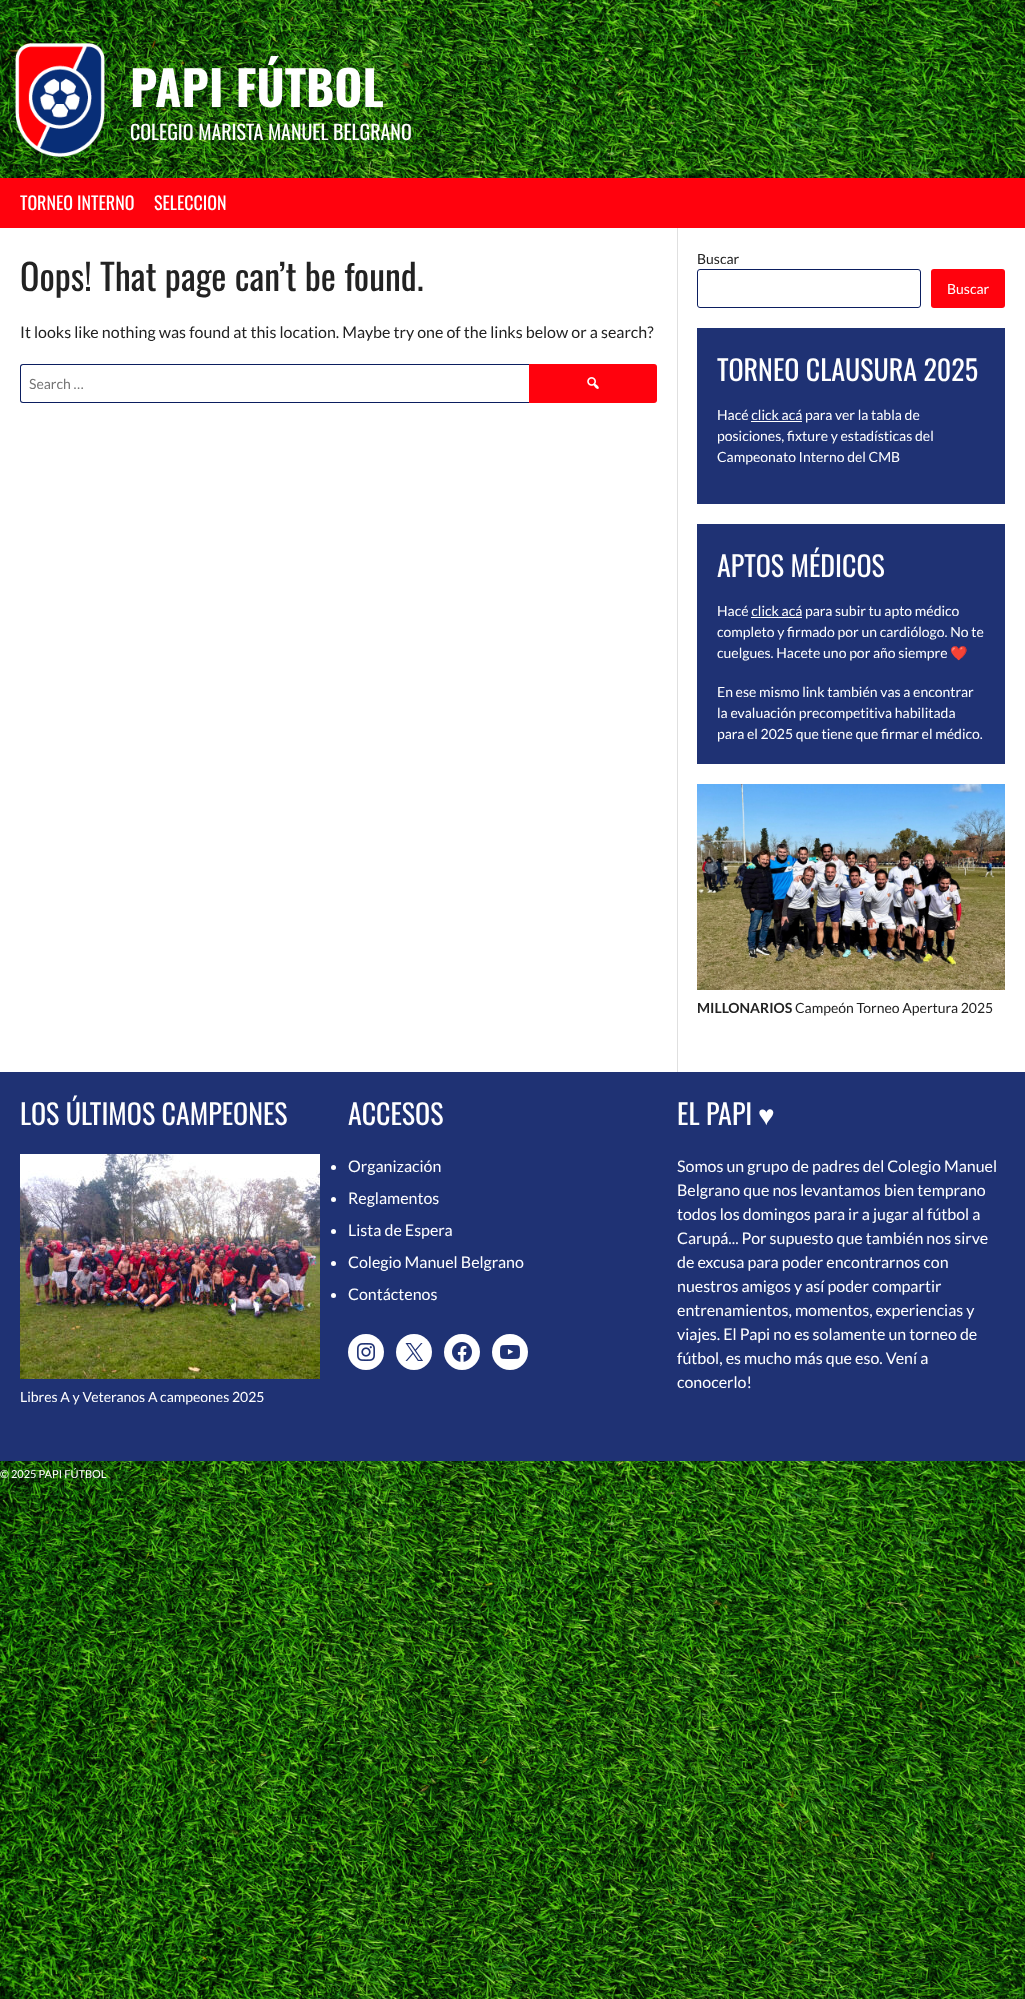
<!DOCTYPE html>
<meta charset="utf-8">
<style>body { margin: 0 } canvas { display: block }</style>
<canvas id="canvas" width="1025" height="1999"></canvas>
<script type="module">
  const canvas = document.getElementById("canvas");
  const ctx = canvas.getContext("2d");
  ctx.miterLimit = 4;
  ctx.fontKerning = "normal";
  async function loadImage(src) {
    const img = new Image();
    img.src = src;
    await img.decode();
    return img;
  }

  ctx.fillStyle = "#ffffff";
  ctx.fillRect(0, 0, 1025, 1999);
  ctx.drawImage(await loadImage("img1.png"), 0, 0, 1025, 1999);
  ctx.drawImage(await loadImage("img2.png"), 15, 43, 90, 114);
  ctx.save();
  ctx.beginPath();
  ctx.rect(130, 56, 895, 90);
  ctx.clip();
  ctx.font = "bold 48px Oswald";
  ctx.fillText("PAPI FÚTBOL", 130, 107);
  ctx.restore();
  ctx.font = "20px Oswald";
  ctx.fillText("COLEGIO MARISTA MANUEL BELGRANO", 130, 140);
  ctx.fillStyle = "#ff020d";
  ctx.fillRect(0, 178, 1025, 50);
  ctx.font = "18px Oswald";
  ctx.fillStyle = "#ffffff";
  ctx.fillText("TORNEO INTERNO", 20, 210);
  ctx.fillText("SELECCION", 154, 210);
  ctx.fillRect(0, 228, 1025, 844);
  ctx.font = "36px Oswald";
  ctx.fillStyle = "#222222";
  ctx.fillText("Oops! That page can’t be found.", 20, 291);
  ctx.font = "16px Lato";
  ctx.fillText("It looks like nothing was found at this location. Maybe try one of the links below or a search?", 20, 338);
  ctx.fillStyle = "#0b1e60";
  ctx.beginPath();
  ctx.moveTo(23, 364);
  ctx.lineTo(529, 364);
  ctx.lineTo(529, 403);
  ctx.lineTo(23, 403);
  ctx.bezierCurveTo(21, 403, 20, 402, 20, 400);
  ctx.lineTo(20, 367);
  ctx.bezierCurveTo(20, 365, 21, 364, 23, 364);
  ctx.closePath();
  ctx.moveTo(23, 365);
  ctx.lineTo(529, 365);
  ctx.lineTo(529, 402);
  ctx.lineTo(23, 402);
  ctx.bezierCurveTo(22, 402, 21, 401, 21, 400);
  ctx.lineTo(21, 367);
  ctx.bezierCurveTo(21, 366, 22, 365, 23, 365);
  ctx.closePath();
  ctx.fill("evenodd");
  ctx.font = "14px Lato";
  ctx.fillStyle = "#757575";
  ctx.fillText("Search …", 29, 389);
  ctx.fillStyle = "#ff020d";
  ctx.beginPath();
  ctx.roundRect(529, 364, 128, 39, [0, 3, 3, 0]);
  ctx.fill();
  ctx.drawImage(await loadImage("img3.png"), 587, 377, 12, 12);
  ctx.fillStyle = "#e0e0e0";
  ctx.fillRect(677, 228, 1, 844);
  ctx.fillStyle = "#222222";
  ctx.fillText("Buscar", 697, 264);
  ctx.beginPath();
  ctx.roundRect(697.5, 269.5, 223, 38, 2.5);
  ctx.strokeStyle = "#0b1e60";
  ctx.stroke();
  ctx.fillStyle = "#ff020d";
  ctx.beginPath();
  ctx.roundRect(931, 269, 74, 39, 3);
  ctx.fill();
  ctx.fillStyle = "#ffffff";
  ctx.fillText("Buscar", 947, 294);
  ctx.fillStyle = "#1f3274";
  ctx.fillRect(697, 328, 308, 176);
  ctx.font = "28px Oswald";
  ctx.fillStyle = "#ffffff";
  ctx.fillText("TORNEO CLAUSURA 2025", 717, 381);
  ctx.font = "14px Lato";
  ctx.fillText("Hacé click acá para ver la tabla de", 717, 420);
  ctx.fillRect(751, 421, 51, 1);
  ctx.fillText("posiciones, fixture y estadísticas del", 717, 441);
  ctx.fillText("Campeonato Interno del CMB", 717, 462);
  ctx.fillStyle = "#1f3274";
  ctx.fillRect(697, 524, 308, 240);
  ctx.font = "28px Oswald";
  ctx.fillStyle = "#ffffff";
  ctx.fillText("APTOS MÉDICOS", 717, 577);
  ctx.font = "14px Lato";
  ctx.fillText("Hacé click acá para subir tu apto médico", 717, 616);
  ctx.fillRect(751, 617, 51, 1);
  ctx.fillText("completo y firmado por un cardiólogo. No te", 717, 637);
  ctx.fillText("cuelgues. Hacete uno por año siempre", 717, 658);
  ctx.font = "14px Noto Color Emoji";
  ctx.fillText("❤️", 950, 658);
  ctx.font = "14px Lato";
  ctx.fillText("En ese mismo link también vas a encontrar", 717, 697);
  ctx.fillText("la evaluación precompetitiva habilitada", 717, 718);
  ctx.fillText("para el 2025 que tiene que firmar el médico.", 717, 739);
  ctx.drawImage(await loadImage("img4.png"), 697, 784, 308, 206);
  ctx.font = "bold 14px Lato";
  ctx.fillStyle = "#222222";
  ctx.fillText("MILLONARIOS", 697, 1013);
  ctx.font = "14px Lato";
  ctx.fillText("Campeón Torneo Apertura 2025", 795, 1013);
  ctx.fillStyle = "#1f3274";
  ctx.fillRect(0, 1072, 1025, 389);
  ctx.font = "28px Oswald";
  ctx.fillStyle = "#ffffff";
  ctx.fillText("LOS ÚLTIMOS CAMPEONES", 20, 1125);
  ctx.drawImage(await loadImage("img5.png"), 20, 1154, 300, 225);
  ctx.font = "14px Lato";
  ctx.fillText("Libres A y Veteranos A campeones 2025", 20, 1402);
  ctx.font = "28px Oswald";
  ctx.fillText("ACCESOS", 348, 1125);
  ctx.beginPath();
  ctx.arc(333.5, 1167.5, 2.5, 0, Math.PI * 2);
  ctx.fill();
  ctx.font = "16px Lato";
  ctx.fillText("Organización", 348, 1172);
  ctx.beginPath();
  ctx.arc(333.5, 1199.5, 2.5, 0, Math.PI * 2);
  ctx.fill();
  ctx.fillText("Reglamentos", 348, 1204);
  ctx.beginPath();
  ctx.arc(333.5, 1231.5, 2.5, 0, Math.PI * 2);
  ctx.fill();
  ctx.fillText("Lista de Espera", 348, 1236);
  ctx.beginPath();
  ctx.arc(333.5, 1263.5, 2.5, 0, Math.PI * 2);
  ctx.fill();
  ctx.fillText("Colegio Manuel Belgrano", 348, 1268);
  ctx.beginPath();
  ctx.arc(333.5, 1295.5, 2.5, 0, Math.PI * 2);
  ctx.fill();
  ctx.fillText("Contáctenos", 348, 1300);
  ctx.beginPath();
  ctx.arc(366, 1352, 18, 0, Math.PI * 2);
  ctx.fill();
  ctx.drawImage(await loadImage("img6.png"), 357, 1343, 18, 18);
  ctx.beginPath();
  ctx.arc(414, 1352, 18, 0, Math.PI * 2);
  ctx.fill();
  ctx.drawImage(await loadImage("img7.png"), 405, 1343, 18, 18);
  ctx.beginPath();
  ctx.arc(462, 1352, 18, 0, Math.PI * 2);
  ctx.fill();
  ctx.drawImage(await loadImage("img8.png"), 452, 1342, 20, 20);
  ctx.beginPath();
  ctx.arc(510, 1352, 18, 0, Math.PI * 2);
  ctx.fill();
  ctx.drawImage(await loadImage("img9.png"), 500, 1345, 20, 14);
  ctx.font = "28px Oswald";
  ctx.fillText("EL PAPI", 677, 1125);
  ctx.font = "28px Liberation Sans";
  ctx.fillText("♥", 758, 1125);
  ctx.font = "16px Lato";
  ctx.fillText("Somos un grupo de padres del Colegio Manuel", 677, 1172);
  ctx.fillText("Belgrano que nos levantamos bien temprano", 677, 1196);
  ctx.fillText("todos los domingos para ir a jugar al fútbol a", 677, 1220);
  ctx.fillText("Carupá... Por supuesto que también nos sirve", 677, 1244);
  ctx.fillText("de excusa para poder encontrarnos con", 677, 1268);
  ctx.fillText("nuestros amigos y así poder compartir", 677, 1292);
  ctx.fillText("entrenamientos, momentos, experiencias y", 677, 1316);
  ctx.fillText("viajes. El Papi no es solamente un torneo de", 677, 1340);
  ctx.fillText("fútbol, es mucho más que eso. Vení a", 677, 1364);
  ctx.fillText("conocerlo!", 677, 1388);
  ctx.font = "11px Lato";
  ctx.fillText("© 2025 PAPI FÚTBOL", 0, 1478);
</script>
